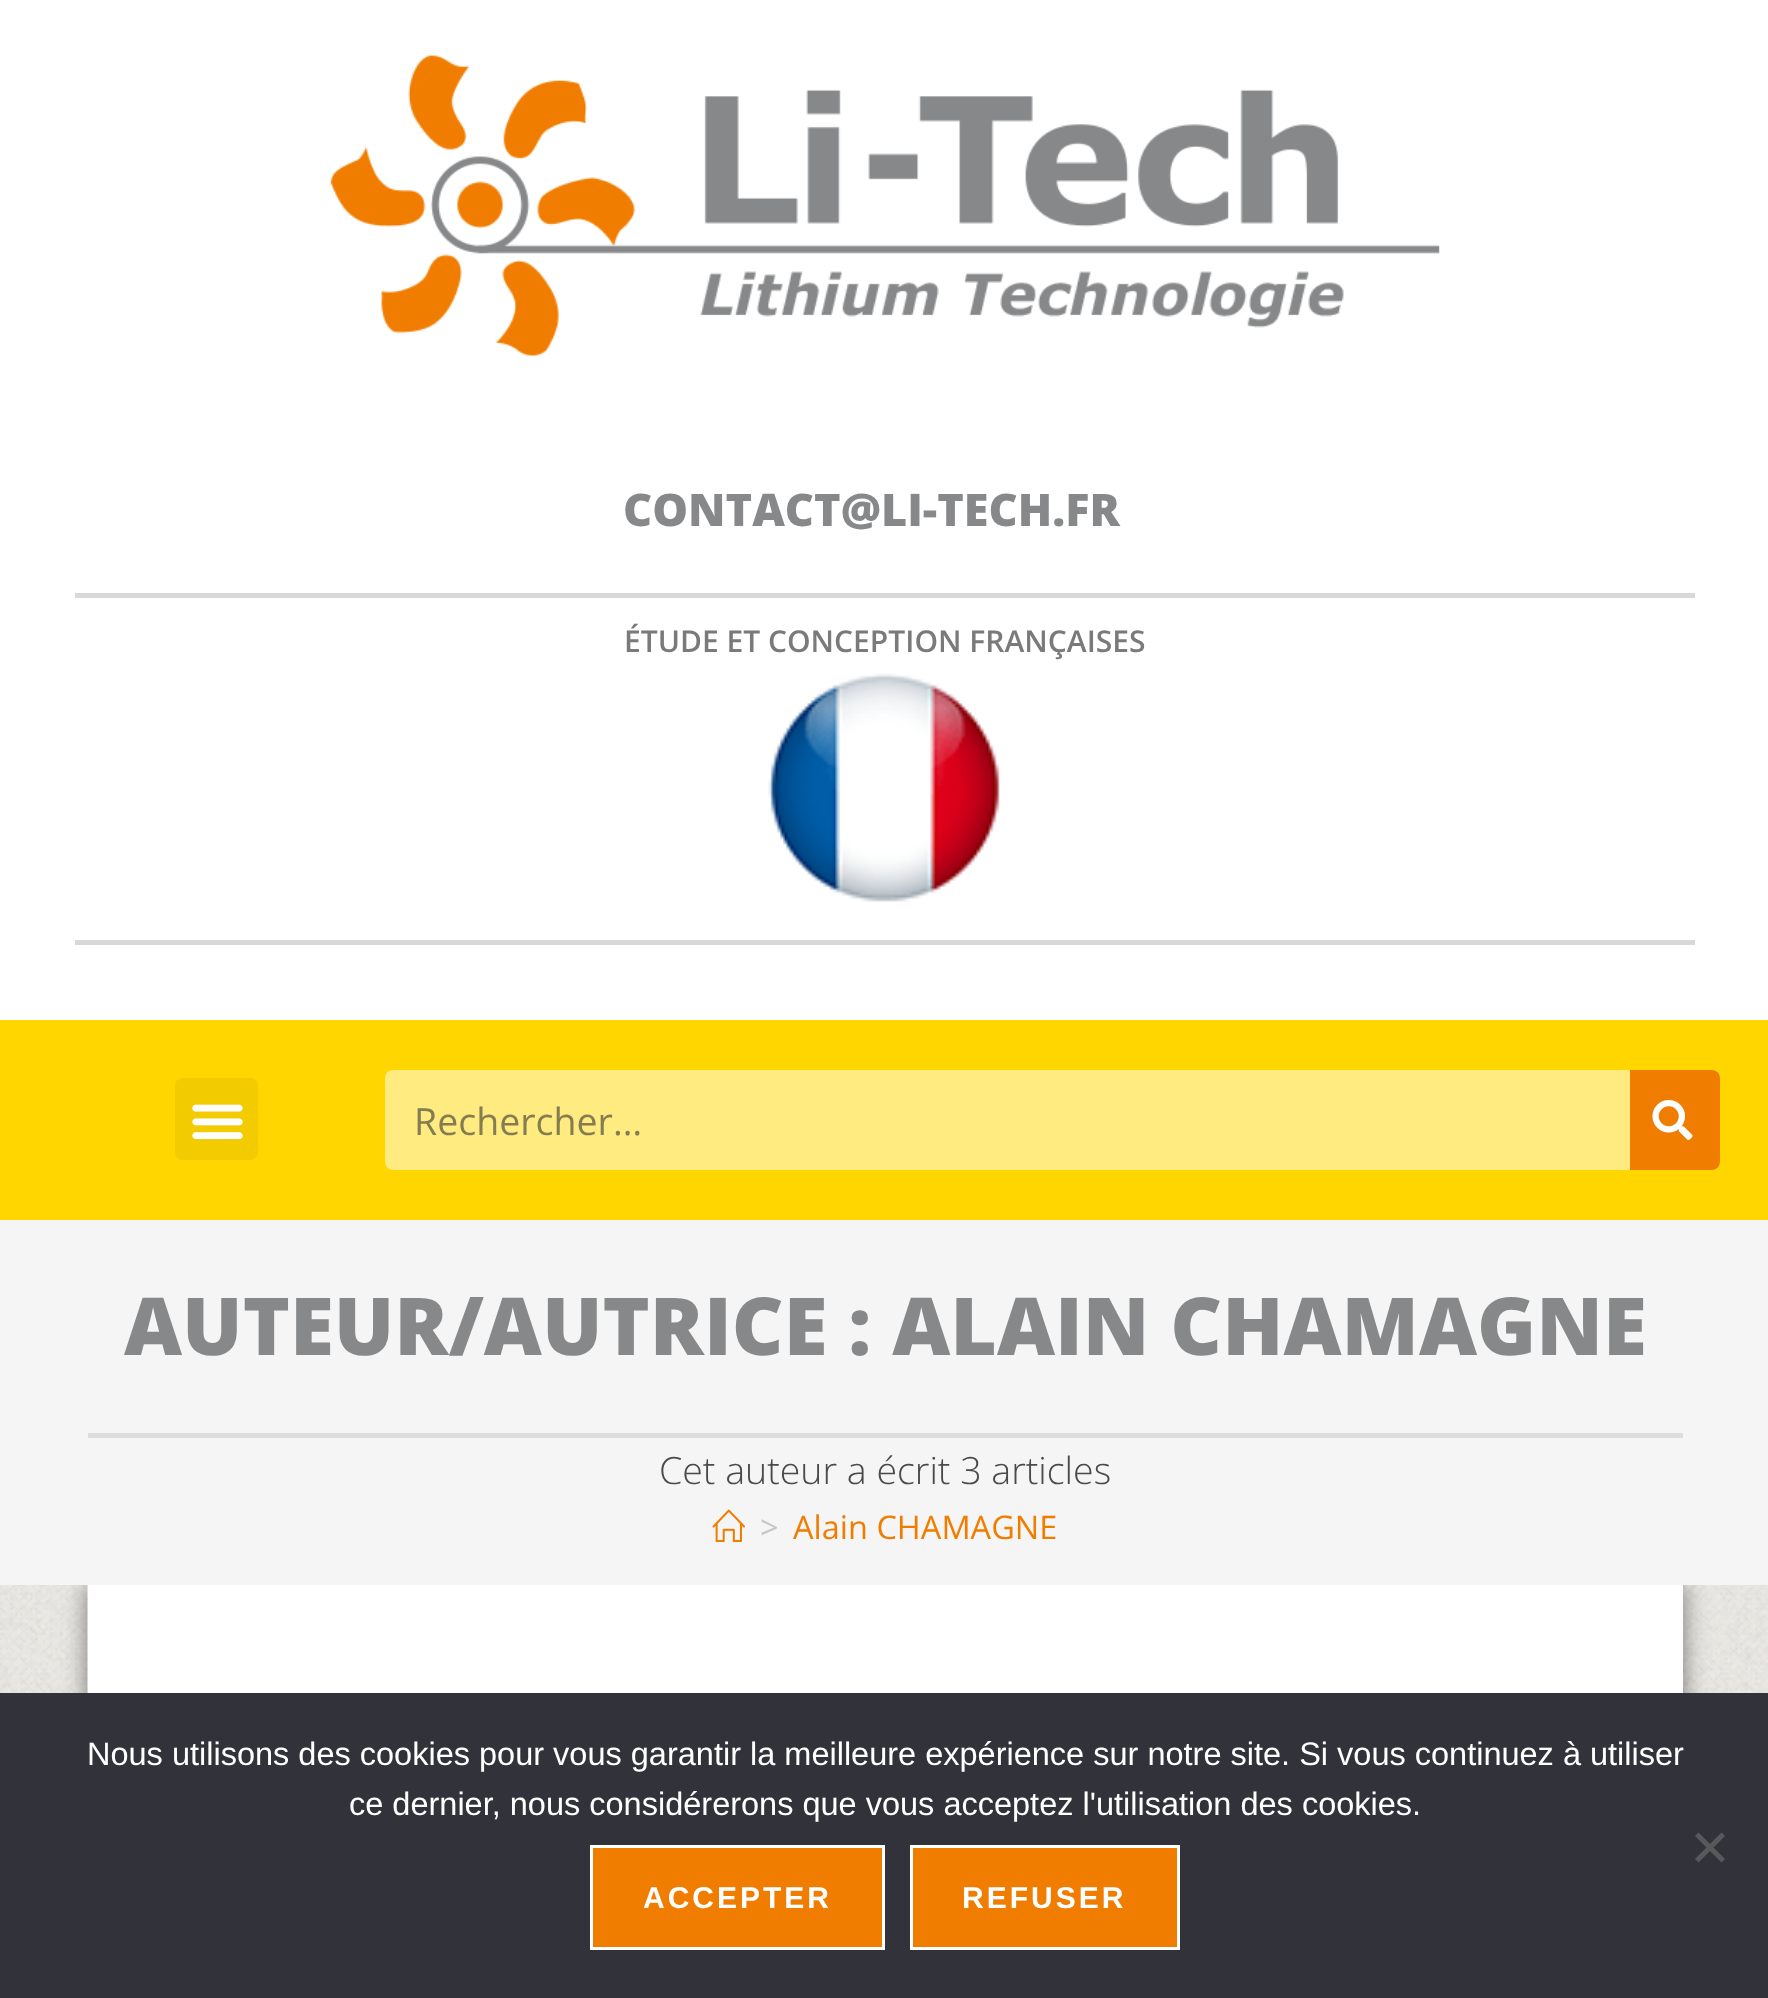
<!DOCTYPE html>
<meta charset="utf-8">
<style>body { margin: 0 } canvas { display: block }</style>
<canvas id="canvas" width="1768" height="1998"></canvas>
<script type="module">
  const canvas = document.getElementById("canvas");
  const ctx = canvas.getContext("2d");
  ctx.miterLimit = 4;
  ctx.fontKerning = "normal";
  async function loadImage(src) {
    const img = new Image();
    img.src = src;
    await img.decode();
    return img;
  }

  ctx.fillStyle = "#ffffff";
  ctx.fillRect(0, 0, 1768, 1998);
  ctx.drawImage(await loadImage("img1.png"), 0, 1585, 1768, 108);
  ctx.drawImage(await loadImage("img2.png"), 330, 55, 1110, 301);
  ctx.font = "800 45px Open Sans";
  ctx.fillStyle = "#87888a";
  ctx.fillText("CONTACT@LI-TECH.FR", 623, 526);
  ctx.fillStyle = "#d8d8d8";
  ctx.fillRect(75, 593, 1620, 5);
  ctx.font = "600 30px Open Sans";
  ctx.fillStyle = "#7a7a7a";
  ctx.fillText("ÉTUDE ET CONCEPTION FRANÇAISES", 624, 652);
  ctx.fillStyle = "#d8d8d8";
  ctx.fillRect(75, 940, 1620, 5);
  ctx.drawImage(await loadImage("img3.png"), 768, 673, 232, 229);
  ctx.fillStyle = "#ffd600";
  ctx.fillRect(0, 1020, 1768, 200);
  ctx.fillStyle = "#f2cb00";
  ctx.beginPath();
  ctx.roundRect(175, 1078, 83, 82, 8);
  ctx.fill();
  ctx.drawImage(await loadImage("img4.png"), 192, 1104, 51, 36);
  ctx.fillStyle = "#ffeb80";
  ctx.beginPath();
  ctx.roundRect(385, 1070, 1335, 100, 8);
  ctx.fill();
  ctx.font = "37.5px Open Sans";
  ctx.fillStyle = "#857d52";
  ctx.fillText("Rechercher…", 414, 1135);
  ctx.fillStyle = "#f17d00";
  ctx.beginPath();
  ctx.roundRect(1630, 1070, 90, 100, [0, 8, 8, 0]);
  ctx.fill();
  ctx.drawImage(await loadImage("img5.png"), 1652, 1100, 41, 40);
  ctx.fillStyle = "rgba(0, 0, 0, 0.5)";
  ctx.filter = "blur(12.5px)";
  ctx.beginPath();
  ctx.rect(88, 1585, 1595, 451);
  ctx.fill();
  ctx.filter = "none";
  ctx.fillStyle = "#f5f5f5";
  ctx.fillRect(0, 1220, 1768, 365);
  ctx.fillStyle = "#dddddd";
  ctx.fillRect(88, 1433, 1595, 5);
  ctx.font = "800 80px Open Sans";
  ctx.fillStyle = "#87888a";
  ctx.fillText("AUTEUR/AUTRICE : ALAIN CHAMAGNE", 124, 1355);
  ctx.font = "300 37.5px Open Sans";
  ctx.fillStyle = "#4a4a4a";
  ctx.fillText("Cet auteur a écrit 3 articles", 659, 1484);
  ctx.drawImage(await loadImage("img6.png"), 712, 1509, 34, 33);
  ctx.font = "32.5px Open Sans";
  ctx.fillStyle = "#c6c6c6";
  ctx.fillText(">", 760, 1539);
  ctx.fillStyle = "#f17d00";
  ctx.fillText("Alain CHAMAGNE", 793, 1539);
  ctx.fillStyle = "#ffffff";
  ctx.fillRect(88, 1585, 1595, 108);
  ctx.fillStyle = "rgba(255, 255, 255, 0.5)";
  ctx.fillRect(87, 1585, 1, 108);
  ctx.fillStyle = "#32323a";
  ctx.fillRect(0, 1693, 1768, 305);
  ctx.font = "32.5px Liberation Sans";
  ctx.fillStyle = "#ffffff";
  ctx.fillText("Nous utilisons des cookies pour vous garantir la meilleure expérience sur notre site. Si vous continuez à utiliser", 87, 1765);
  ctx.fillText("ce dernier, nous considérerons que vous acceptez l'utilisation des cookies.", 349, 1815);
  ctx.fillStyle = "#59595d";
  ctx.beginPath();
  ctx.moveTo(1721.5, 1832.5);
  ctx.lineTo(1725, 1836);
  ctx.lineTo(1698.5, 1862.5);
  ctx.lineTo(1695, 1859);
  ctx.closePath();
  ctx.fill();
  ctx.beginPath();
  ctx.moveTo(1695, 1836);
  ctx.lineTo(1698.5, 1832.5);
  ctx.lineTo(1725, 1859);
  ctx.lineTo(1721.5, 1862.5);
  ctx.closePath();
  ctx.fill();
  ctx.fillStyle = "#f17d00";
  ctx.beginPath();
  ctx.rect(591.5, 1846.5, 292, 102);
  ctx.fill();
  ctx.strokeStyle = "#ffffff";
  ctx.lineWidth = 3;
  ctx.stroke();
  ctx.letterSpacing = "3px";
  ctx.font = "bold 30px Liberation Sans";
  ctx.fillStyle = "#ffffff";
  ctx.fillText("ACCEPTER", 643, 1908);
  ctx.fillStyle = "#f17d00";
  ctx.beginPath();
  ctx.rect(911.5, 1846.5, 267, 102);
  ctx.fill();
  ctx.stroke();
  ctx.fillStyle = "#ffffff";
  ctx.fillText("REFUSER", 962, 1908);
</script>
